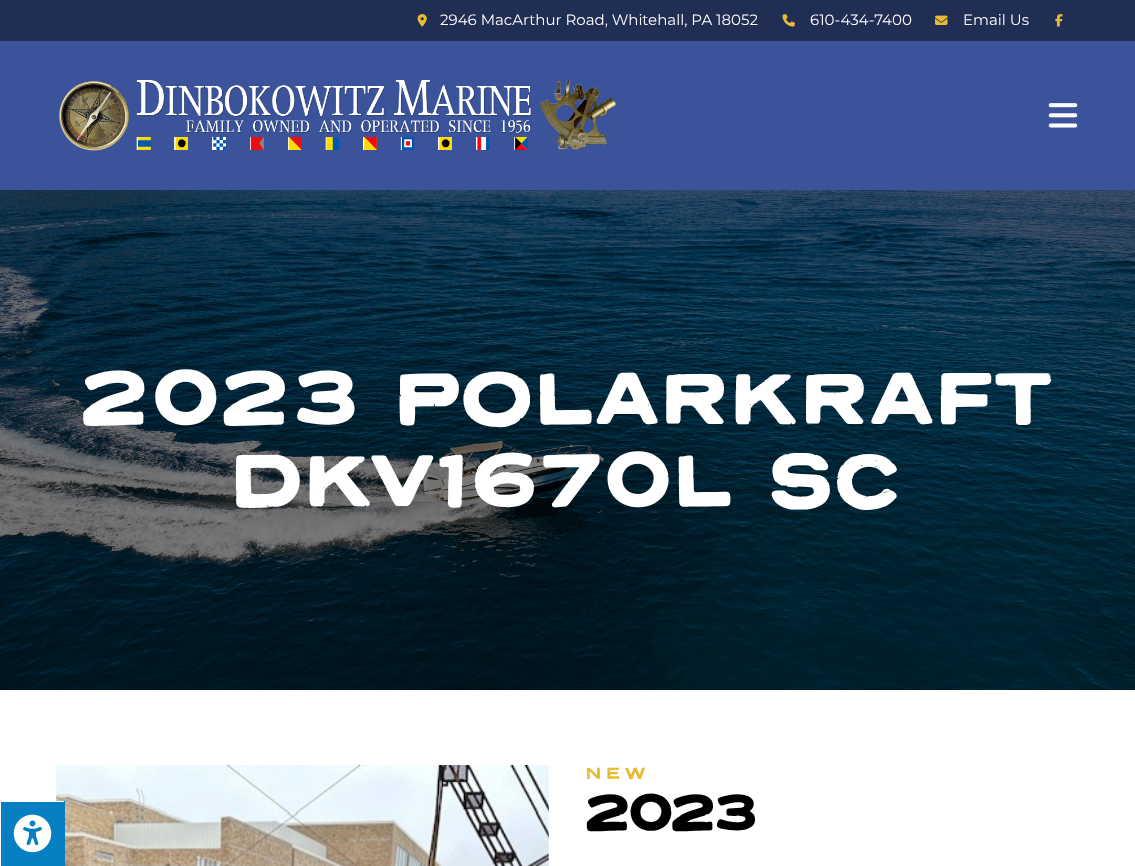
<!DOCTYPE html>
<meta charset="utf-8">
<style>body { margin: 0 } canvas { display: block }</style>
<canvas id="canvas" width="1135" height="866"></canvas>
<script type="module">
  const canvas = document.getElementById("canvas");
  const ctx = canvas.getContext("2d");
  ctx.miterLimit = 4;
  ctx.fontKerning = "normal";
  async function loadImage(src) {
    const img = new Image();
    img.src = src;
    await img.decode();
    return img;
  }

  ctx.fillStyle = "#ffffff";
  ctx.fillRect(0, 0, 1135, 866);
  ctx.drawImage(await loadImage("img9.png"), 56, 765, 493, 101);
  ctx.fillStyle = "#0780c3";
  ctx.fillRect(1, 802, 63, 64);
  ctx.fillStyle = "#ffffff";
  ctx.fillRect(56, 801, 9, 1);
  ctx.fillStyle = "#0780c3";
  ctx.fillRect(64, 801, 1, 65);
  ctx.drawImage(await loadImage("img1.png"), 13, 814, 39, 39);
  ctx.fillStyle = "#212e53";
  ctx.fillRect(0, 0, 1135, 41);
  ctx.drawImage(await loadImage("img2.png"), 417, 14, 10, 13);
  ctx.font = "15px Montserrat";
  ctx.fillStyle = "#ffffff";
  ctx.fillText("2946 MacArthur Road, Whitehall, PA 18052", 440, 25);
  ctx.drawImage(await loadImage("img3.png"), 782, 14, 13, 13);
  ctx.fillText("610-434-7400", 810, 25);
  ctx.drawImage(await loadImage("img4.png"), 935, 15, 13, 10);
  ctx.fillText("Email Us", 963, 25);
  ctx.drawImage(await loadImage("img5.png"), 1055, 14, 8, 13);
  ctx.fillStyle = "#3a539b";
  ctx.fillRect(0, 41, 1135, 149);
  ctx.drawImage(await loadImage("img6.png"), 57, 79, 560, 72);
  ctx.drawImage(await loadImage("img7.png"), 1048, 103, 30, 25);
  ctx.drawImage(await loadImage("img8.png"), 0, 190, 1135, 500);
  ctx.letterSpacing = "6.25px";
  ctx.font = "bold 75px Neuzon";
  ctx.fillStyle = "#ffffff";
  ctx.fillText("2023 POLARKRAFT", 82, 424);
  ctx.fillText("DKV1670L SC", 232, 506);
  ctx.letterSpacing = "5px";
  ctx.font = "17.5px Neuzon";
  ctx.fillStyle = "#e7bb33";
  ctx.fillText("NEW", 586, 779);
  ctx.letterSpacing = "0px";
  ctx.font = "bold 50px Neuzon";
  ctx.fillStyle = "#000000";
  ctx.fillText("2023", 586, 830);
</script>
